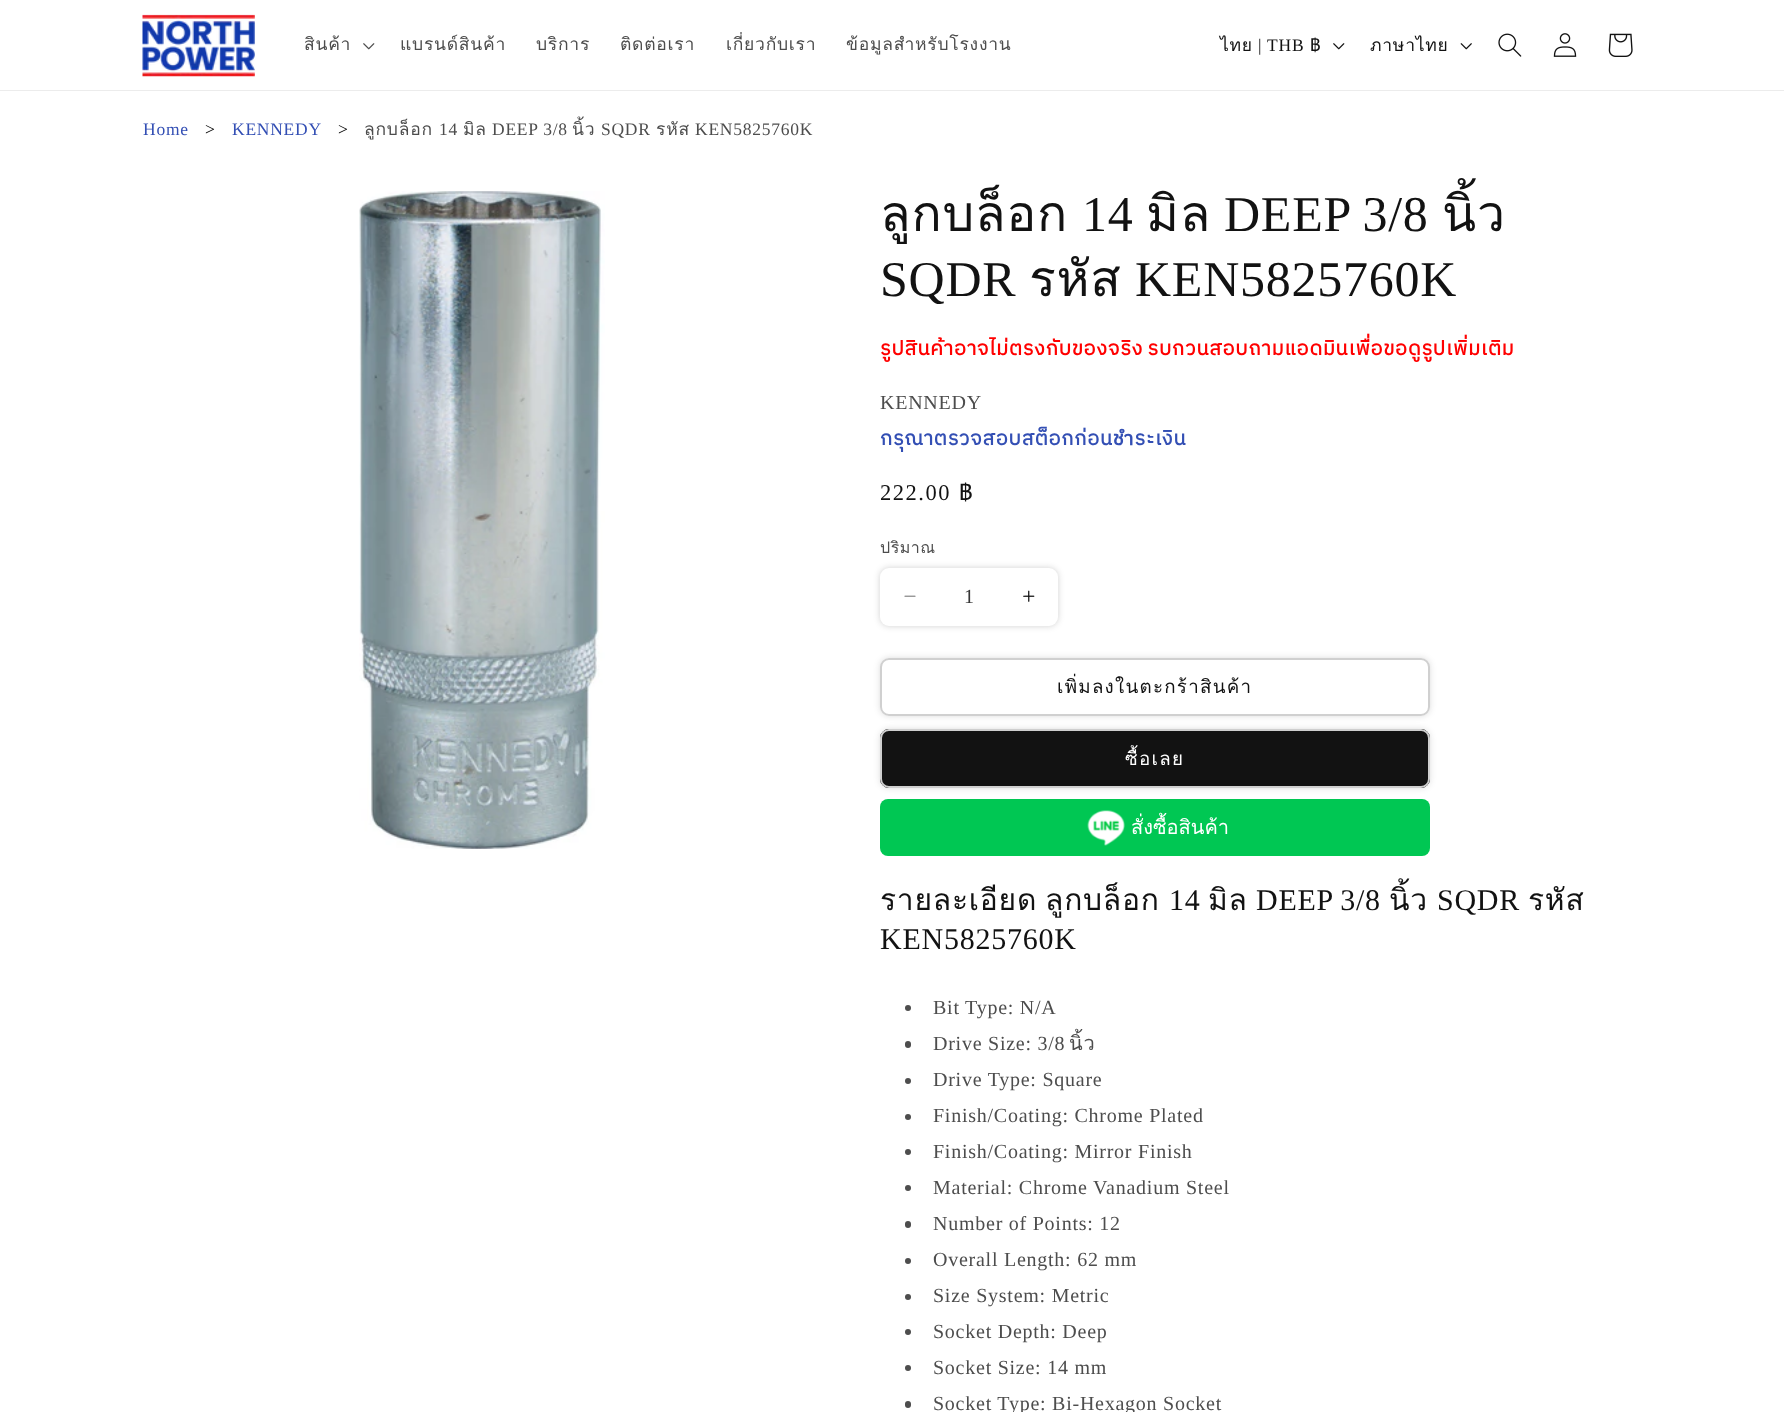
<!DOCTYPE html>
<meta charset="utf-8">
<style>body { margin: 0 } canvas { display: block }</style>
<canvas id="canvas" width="1784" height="1412"></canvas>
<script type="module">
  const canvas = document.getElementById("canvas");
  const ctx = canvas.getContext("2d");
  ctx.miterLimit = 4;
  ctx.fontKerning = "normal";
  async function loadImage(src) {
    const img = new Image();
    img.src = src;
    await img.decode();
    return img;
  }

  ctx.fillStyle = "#ffffff";
  ctx.fillRect(0, 0, 1784, 1412);
  ctx.fillStyle = "#ececec";
  ctx.fillRect(0, 90, 1784, 1);
  ctx.drawImage(await loadImage("img1.png"), 142, 14, 113, 63);
  ctx.letterSpacing = "0.75px";
  ctx.font = "17.5px Loma";
  ctx.fillStyle = "#4d4d4d";
  ctx.fillText("สินค้า", 304, 50);
  ctx.drawImage(await loadImage("img2.png"), 363, 43, 12, 7);
  ctx.fillText("แบรนด์สินค้า", 400, 50);
  ctx.fillText("บริการ", 536, 50);
  ctx.fillText("ติดต่อเรา", 620, 50);
  ctx.fillText("เกี่ยวกับเรา", 726, 50);
  ctx.fillText("ข้อมูลสำหรับโรงงาน", 846, 50);
  ctx.fillStyle = "#121212";
  ctx.fillText("ไทย", 1220, 51);
  ctx.font = "17.5px Liberation Serif";
  ctx.fillText("| THB", 1258, 51);
  ctx.font = "17.5px Loma";
  ctx.fillText("฿", 1310, 51);
  ctx.drawImage(await loadImage("img3.png"), 1333, 43, 12, 7);
  ctx.fillText("ภาษาไทย", 1370, 51);
  ctx.drawImage(await loadImage("img4.png"), 1460, 43, 12, 7);
  ctx.drawImage(await loadImage("img5.png"), 1498, 33, 24, 24);
  ctx.drawImage(await loadImage("img6.png"), 1553, 33, 24, 24);
  ctx.drawImage(await loadImage("img7.png"), 1608, 33, 25, 24);
  ctx.font = "17.5px Liberation Serif";
  ctx.fillStyle = "#334fb4";
  ctx.fillText("Home", 143, 135);
  ctx.fillStyle = "#000000";
  ctx.fillText(">", 205, 135);
  ctx.fillStyle = "#334fb4";
  ctx.fillText("KENNEDY", 232, 135);
  ctx.fillStyle = "#000000";
  ctx.fillText(">", 338, 135);
  ctx.font = "17.5px Loma";
  ctx.fillStyle = "#4d4d4d";
  ctx.fillText("ลูกบล็อก", 364, 135);
  ctx.font = "17.5px Liberation Serif";
  ctx.fillText("14", 439, 135);
  ctx.font = "17.5px Loma";
  ctx.fillText("มิล", 463, 135);
  ctx.font = "17.5px Liberation Serif";
  ctx.fillText("DEEP 3/8", 492, 135);
  ctx.font = "17.5px Loma";
  ctx.fillText("นิ้ว", 572, 135);
  ctx.font = "17.5px Liberation Serif";
  ctx.fillText("SQDR", 601, 135);
  ctx.font = "17.5px Loma";
  ctx.fillText("รหัส", 656, 135);
  ctx.font = "17.5px Liberation Serif";
  ctx.fillText("KEN5825760K", 695, 135);
  ctx.drawImage(await loadImage("img8.png"), 359, 191, 246, 658);
  ctx.font = "50px Loma";
  ctx.fillStyle = "#121212";
  ctx.fillText("ลูกบล็อก", 880, 231);
  ctx.font = "50px Liberation Serif";
  ctx.fillText("14", 1082, 231);
  ctx.font = "50px Loma";
  ctx.fillText("มิล", 1146, 231);
  ctx.wordSpacing = "-1px";
  ctx.font = "50px Liberation Serif";
  ctx.fillText("DEEP 3/8", 1224, 231);
  ctx.wordSpacing = "0px";
  ctx.font = "50px Loma";
  ctx.fillText("นิ้ว", 1442, 231);
  ctx.font = "50px Liberation Serif";
  ctx.fillText("SQDR", 880, 296);
  ctx.font = "50px Loma";
  ctx.fillText("รหัส", 1029, 296);
  ctx.font = "50px Liberation Serif";
  ctx.fillText("KEN5825760K", 1135, 296);
  ctx.wordSpacing = "-1px";
  ctx.font = "bold 20px IBM Plex Sans Thai";
  ctx.fillStyle = "#ff0000";
  ctx.fillText("รูปสินค้าอาจไม่ตรงกับของจริง รบกวนสอบถามแอดมินเพื่อขอดูรูปเพิ่มเติม", 880, 355);
  ctx.wordSpacing = "0px";
  ctx.font = "20px Liberation Serif";
  ctx.fillStyle = "#4d4d4d";
  ctx.fillText("KENNEDY", 880, 409);
  ctx.font = "bold 20px IBM Plex Sans Thai";
  ctx.fillStyle = "#334fb4";
  ctx.fillText("กรุณาตรวจสอบสต็อกก่อนชำระเงิน", 880, 445);
  ctx.letterSpacing = "1.5px";
  ctx.font = "22.5px Liberation Serif";
  ctx.fillStyle = "#121212";
  ctx.fillText("222.00", 880, 500);
  ctx.font = "22.5px Loma";
  ctx.fillText("฿", 959, 500);
  ctx.letterSpacing = "0.5px";
  ctx.font = "16px Loma";
  ctx.fillStyle = "#4d4d4d";
  ctx.fillText("ปริมาณ", 880, 553);
  ctx.fillStyle = "rgba(18, 18, 18, 0.2)";
  ctx.filter = "blur(3px)";
  ctx.beginPath();
  ctx.roundRect(880, 568, 178, 58, 9);
  ctx.fill();
  ctx.filter = "none";
  ctx.fillStyle = "#ffffff";
  ctx.beginPath();
  ctx.roundRect(880, 568, 178, 58, 9);
  ctx.fill();
  ctx.drawImage(await loadImage("img9.png"), 904, 595, 12, 2);
  ctx.letterSpacing = "0px";
  ctx.font = "20px Liberation Serif";
  ctx.fillStyle = "#363636";
  ctx.fillText("1", 964, 603);
  ctx.drawImage(await loadImage("img10.png"), 1023, 590, 12, 12);
  ctx.fillStyle = "rgba(18, 18, 18, 0.15)";
  ctx.filter = "blur(3px)";
  ctx.beginPath();
  ctx.roundRect(880, 658, 550, 58, 9);
  ctx.fill();
  ctx.filter = "none";
  ctx.fillStyle = "#ffffff";
  ctx.beginPath();
  ctx.roundRect(880, 658, 550, 58, 9);
  ctx.fill();
  ctx.beginPath();
  ctx.roundRect(881, 659, 548, 56, 8);
  ctx.strokeStyle = "#d0d0d0";
  ctx.lineWidth = 2;
  ctx.stroke();
  ctx.letterSpacing = "1.25px";
  ctx.font = "18.75px Loma";
  ctx.fillStyle = "#121212";
  ctx.fillText("เพิ่มลงในตะกร้าสินค้า", 1057, 693);
  ctx.fillStyle = "rgba(18, 18, 18, 0.15)";
  ctx.filter = "blur(3px)";
  ctx.beginPath();
  ctx.roundRect(880, 729, 550, 59, 9);
  ctx.fill();
  ctx.filter = "none";
  ctx.fillStyle = "#121212";
  ctx.beginPath();
  ctx.roundRect(880, 729, 550, 59, 9);
  ctx.fill();
  ctx.beginPath();
  ctx.roundRect(880.5, 729.5, 549, 58, 8.5);
  ctx.strokeStyle = "#121212";
  ctx.lineWidth = 1;
  ctx.stroke();
  ctx.beginPath();
  ctx.roundRect(881, 730, 548, 57, 8);
  ctx.strokeStyle = "rgba(255, 255, 255, 0.8)";
  ctx.lineWidth = 2;
  ctx.stroke();
  ctx.fillStyle = "#ffffff";
  ctx.fillText("ซื้อเลย", 1125, 765);
  ctx.fillStyle = "#00c753";
  ctx.beginPath();
  ctx.roundRect(880, 799, 550, 57, 8);
  ctx.fill();
  ctx.drawImage(await loadImage("img11.png"), 1087, 810, 38, 36);
  ctx.letterSpacing = "0px";
  ctx.font = "20px Loma";
  ctx.fillStyle = "#ffffff";
  ctx.fillText("สั่งซื้อสินค้า", 1131, 834);
  ctx.letterSpacing = "0.75px";
  ctx.font = "30px Loma";
  ctx.fillStyle = "#121212";
  ctx.fillText("รายละเอียด", 880, 910);
  ctx.fillText("ลูกบล็อก", 1045, 910);
  ctx.font = "30px Liberation Serif";
  ctx.fillText("14", 1169, 910);
  ctx.font = "30px Loma";
  ctx.fillText("มิล", 1208, 910);
  ctx.wordSpacing = "-1px";
  ctx.font = "30px Liberation Serif";
  ctx.fillText("DEEP 3/8", 1256, 910);
  ctx.wordSpacing = "0px";
  ctx.font = "30px Loma";
  ctx.fillText("นิ้ว", 1389, 910);
  ctx.font = "30px Liberation Serif";
  ctx.fillText("SQDR", 1437, 910);
  ctx.font = "30px Loma";
  ctx.fillText("รหัส", 1528, 910);
  ctx.font = "30px Liberation Serif";
  ctx.fillText("KEN5825760K", 880, 949);
  ctx.fillStyle = "#4d4d4d";
  ctx.beginPath();
  ctx.arc(908, 1008, 3, 0, Math.PI * 2);
  ctx.fill();
  ctx.font = "20px Liberation Serif";
  ctx.fillText("Bit Type: N/A", 933, 1014);
  ctx.beginPath();
  ctx.roundRect(905, 1041, 6, 7, 3);
  ctx.fill();
  ctx.fillText("Drive Size: 3/8", 933, 1050);
  ctx.font = "20px Loma";
  ctx.fillText("นิ้ว", 1069, 1050);
  ctx.beginPath();
  ctx.arc(908, 1081, 3, 0, Math.PI * 2);
  ctx.fill();
  ctx.font = "20px Liberation Serif";
  ctx.fillText("Drive Type: Square", 933, 1086);
  ctx.beginPath();
  ctx.arc(908, 1117, 3, 0, Math.PI * 2);
  ctx.fill();
  ctx.fillText("Finish/Coating: Chrome Plated", 933, 1122);
  ctx.beginPath();
  ctx.arc(908, 1152, 3, 0, Math.PI * 2);
  ctx.fill();
  ctx.fillText("Finish/Coating: Mirror Finish", 933, 1158);
  ctx.beginPath();
  ctx.arc(908, 1188, 3, 0, Math.PI * 2);
  ctx.fill();
  ctx.fillText("Material: Chrome Vanadium Steel", 933, 1194);
  ctx.beginPath();
  ctx.roundRect(905, 1221, 6, 7, 3);
  ctx.fill();
  ctx.fillText("Number of Points: 12", 933, 1230);
  ctx.beginPath();
  ctx.arc(908, 1261, 3, 0, Math.PI * 2);
  ctx.fill();
  ctx.fillText("Overall Length: 62 mm", 933, 1266);
  ctx.beginPath();
  ctx.arc(908, 1297, 3, 0, Math.PI * 2);
  ctx.fill();
  ctx.fillText("Size System: Metric", 933, 1302);
  ctx.beginPath();
  ctx.arc(908, 1332, 3, 0, Math.PI * 2);
  ctx.fill();
  ctx.fillText("Socket Depth: Deep", 933, 1338);
  ctx.beginPath();
  ctx.arc(908, 1368, 3, 0, Math.PI * 2);
  ctx.fill();
  ctx.fillText("Socket Size: 14 mm", 933, 1374);
  ctx.beginPath();
  ctx.roundRect(905, 1401, 6, 7, 3);
  ctx.fill();
  ctx.fillText("Socket Type: Bi-Hexagon Socket", 933, 1410);
</script>
